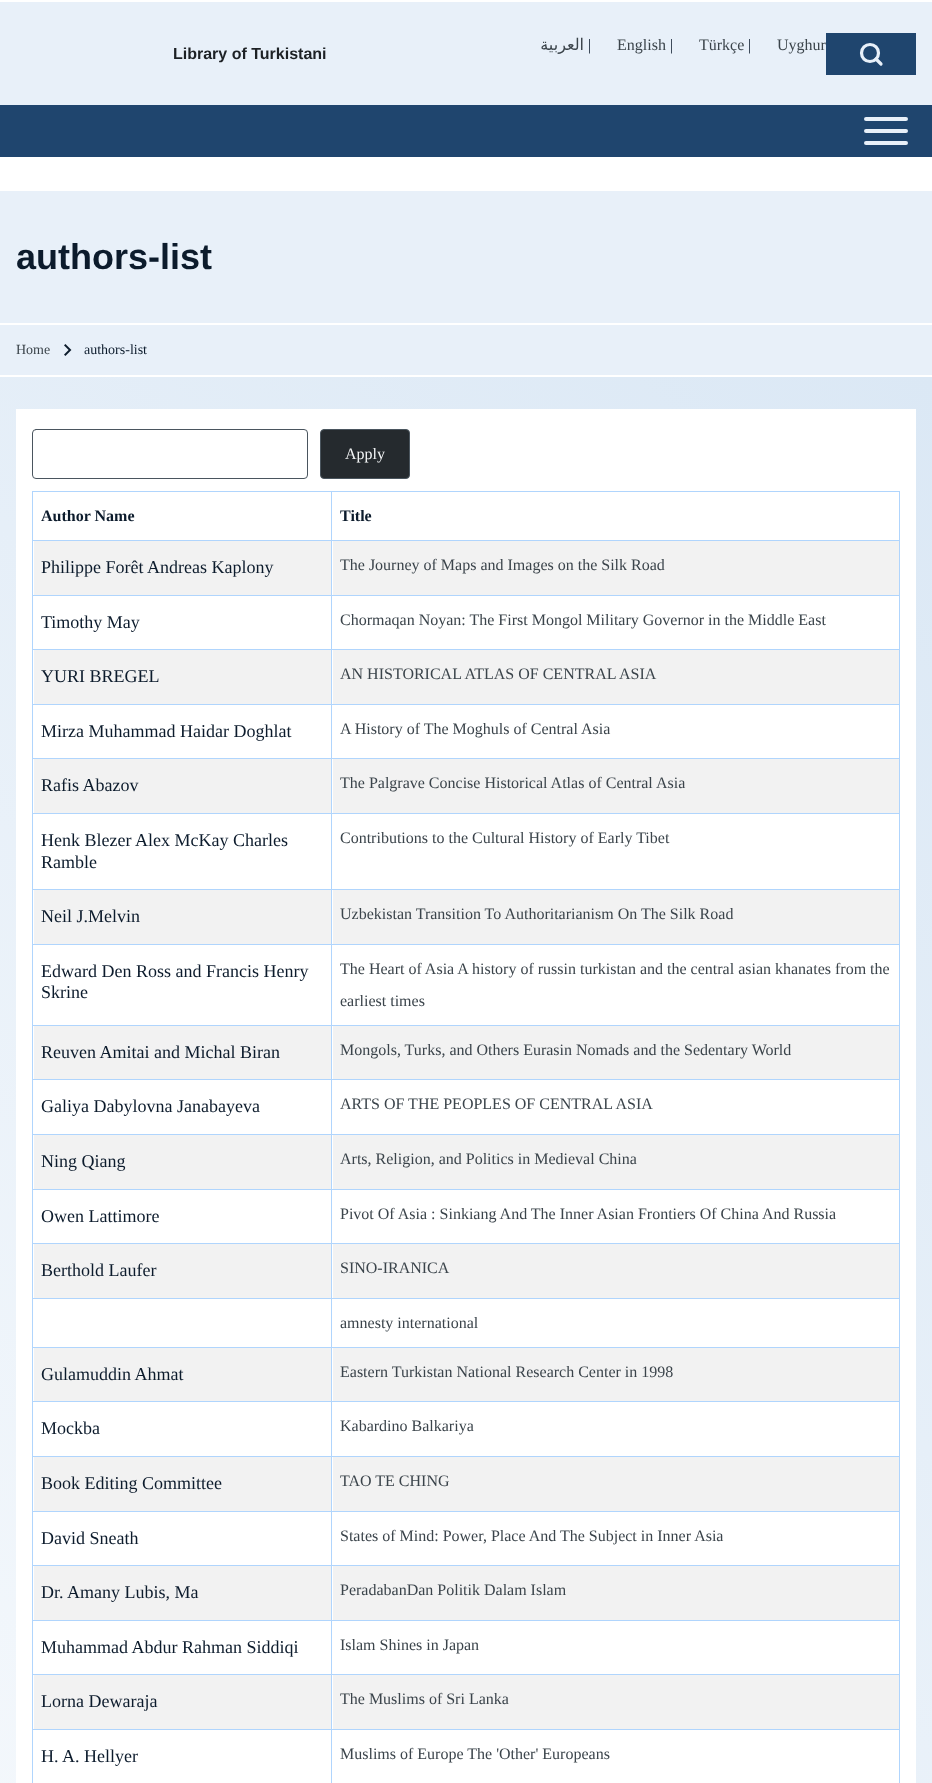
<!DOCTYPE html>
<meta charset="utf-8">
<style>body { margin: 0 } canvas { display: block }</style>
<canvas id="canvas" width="932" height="1783"></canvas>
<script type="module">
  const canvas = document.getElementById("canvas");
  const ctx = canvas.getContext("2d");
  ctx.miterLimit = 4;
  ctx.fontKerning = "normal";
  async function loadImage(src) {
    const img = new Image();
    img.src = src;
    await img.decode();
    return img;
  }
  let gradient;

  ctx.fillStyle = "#e8f0f9";
  ctx.fillRect(0, 0, 932, 1783);
  ctx.fillStyle = "#ffffff";
  ctx.fillRect(0, 0, 932, 2);
  ctx.font = "bold 16px Liberation Sans";
  ctx.fillStyle = "#1d2125";
  ctx.fillText("Library of Turkistani", 173, 59);
  ctx.direction = "rtl";
  ctx.font = "16px DejaVu Sans";
  ctx.fillStyle = "#3b444b";
  ctx.fillText("العربية", 584, 50);
  ctx.direction = "ltr";
  ctx.font = "16px Liberation Serif";
  ctx.fillStyle = "#0c1b2c";
  ctx.fillText("|", 588, 50);
  ctx.fillStyle = "#3b444b";
  ctx.fillText("English", 617, 50);
  ctx.fillStyle = "#0c1b2c";
  ctx.fillText("|", 670, 50);
  ctx.fillStyle = "#3b444b";
  ctx.fillText("Türkçe", 699, 50);
  ctx.fillStyle = "#0c1b2c";
  ctx.fillText("|", 748, 50);
  ctx.fillStyle = "#3b444b";
  ctx.fillText("Uyghur", 777, 50);
  ctx.fillStyle = "#1f456e";
  ctx.fillRect(826, 33, 90, 42);
  ctx.beginPath();
  ctx.arc(870, 53, 8.5, 0, Math.PI * 2);
  ctx.strokeStyle = "#e8f0f9";
  ctx.lineWidth = 3.2;
  ctx.stroke();
  ctx.beginPath();
  ctx.moveTo(881, 64);
  ctx.lineTo(876, 59);
  ctx.lineCap = "round";
  ctx.lineJoin = "round";
  ctx.stroke();
  ctx.fillRect(0, 105, 932, 52);
  ctx.beginPath();
  ctx.moveTo(866, 143);
  ctx.lineTo(906, 143);
  ctx.closePath();
  ctx.moveTo(866, 131);
  ctx.lineTo(906, 131);
  ctx.closePath();
  ctx.moveTo(866, 119);
  ctx.lineTo(906, 119);
  ctx.closePath();
  ctx.lineWidth = 4;
  ctx.stroke();
  ctx.fillStyle = "#ffffff";
  ctx.fillRect(0, 157, 932, 34);
  ctx.fillRect(0, 323, 932, 2);
  ctx.font = "bold 36px Liberation Sans";
  ctx.fillStyle = "#0c1b2c";
  ctx.fillText("authors-list", 16, 269);
  ctx.fillStyle = "#ffffff";
  ctx.fillRect(0, 375, 932, 2);
  ctx.font = "14px Liberation Serif";
  ctx.fillStyle = "#3b444b";
  ctx.fillText("Home", 16, 354);
  ctx.drawImage(await loadImage("img1.png"), 64, 344, 8, 12);
  ctx.fillStyle = "#0c1b2c";
  ctx.fillText("authors-list", 84, 354);
  gradient = ctx.createLinearGradient(-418, 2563, 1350, 795);
  gradient.addColorStop(0, "#ffffff");
  gradient.addColorStop(1, "#dbe8f5");
  ctx.fillStyle = gradient;
  ctx.fillRect(0, 377, 932, 1406);
  ctx.fillStyle = "#ffffff";
  ctx.fillRect(16, 409, 900, 1374);
  ctx.beginPath();
  ctx.roundRect(32.5, 429.5, 275, 49, 3.5);
  ctx.strokeStyle = "#4a555e";
  ctx.lineWidth = 1;
  ctx.lineJoin = "miter";
  ctx.stroke();
  ctx.fillStyle = "#252a2e";
  ctx.beginPath();
  ctx.roundRect(320.5, 429.5, 89, 49, 3.5);
  ctx.fill();
  ctx.stroke();
  ctx.font = "16px Liberation Serif";
  ctx.fillStyle = "#f4f6f7";
  ctx.fillText("Apply", 345, 459);
  ctx.fillStyle = "#b0d5fd";
  ctx.fillRect(32, 491, 868, 1);
  ctx.font = "bold 16px Liberation Serif";
  ctx.fillStyle = "#0c1b2c";
  ctx.fillText("Author Name", 41, 521);
  ctx.fillText("Title", 340, 521);
  ctx.fillStyle = "#b0d5fd";
  ctx.fillRect(32, 540, 868, 1);
  ctx.fillStyle = "#f2f2f2";
  ctx.fillRect(34, 541, 297, 54);
  ctx.font = "18px Liberation Serif";
  ctx.fillStyle = "#0c1b2c";
  ctx.fillText("Philippe Forêt Andreas Kaplony", 41, 573);
  ctx.fillStyle = "#f2f2f2";
  ctx.fillRect(333, 541, 566, 54);
  ctx.font = "16px Liberation Serif";
  ctx.fillStyle = "#3b444b";
  ctx.fillText("The Journey of Maps and Images on the Silk Road", 340, 570);
  ctx.fillStyle = "#b0d5fd";
  ctx.fillRect(32, 595, 868, 1);
  ctx.font = "18px Liberation Serif";
  ctx.fillStyle = "#0c1b2c";
  ctx.fillText("Timothy May", 41, 628);
  ctx.font = "16px Liberation Serif";
  ctx.fillStyle = "#3b444b";
  ctx.fillText("Chormaqan Noyan: The First Mongol Military Governor in the Middle East", 340, 625);
  ctx.fillStyle = "#b0d5fd";
  ctx.fillRect(32, 649, 868, 1);
  ctx.fillStyle = "#f2f2f2";
  ctx.fillRect(34, 650, 297, 54);
  ctx.font = "18px Liberation Serif";
  ctx.fillStyle = "#0c1b2c";
  ctx.fillText("YURI BREGEL", 41, 682);
  ctx.fillStyle = "#f2f2f2";
  ctx.fillRect(333, 650, 566, 54);
  ctx.font = "16px Liberation Serif";
  ctx.fillStyle = "#3b444b";
  ctx.fillText("AN HISTORICAL ATLAS OF CENTRAL ASIA", 340, 679);
  ctx.fillStyle = "#b0d5fd";
  ctx.fillRect(32, 704, 868, 1);
  ctx.font = "18px Liberation Serif";
  ctx.fillStyle = "#0c1b2c";
  ctx.fillText("Mirza Muhammad Haidar Doghlat", 41, 737);
  ctx.font = "16px Liberation Serif";
  ctx.fillStyle = "#3b444b";
  ctx.fillText("A History of The Moghuls of Central Asia", 340, 734);
  ctx.fillStyle = "#b0d5fd";
  ctx.fillRect(32, 758, 868, 1);
  ctx.fillStyle = "#f2f2f2";
  ctx.fillRect(34, 759, 297, 54);
  ctx.font = "18px Liberation Serif";
  ctx.fillStyle = "#0c1b2c";
  ctx.fillText("Rafis Abazov", 41, 791);
  ctx.fillStyle = "#f2f2f2";
  ctx.fillRect(333, 759, 566, 54);
  ctx.font = "16px Liberation Serif";
  ctx.fillStyle = "#3b444b";
  ctx.fillText("The Palgrave Concise Historical Atlas of Central Asia", 340, 788);
  ctx.fillStyle = "#b0d5fd";
  ctx.fillRect(32, 813, 868, 1);
  ctx.font = "18px Liberation Serif";
  ctx.fillStyle = "#0c1b2c";
  ctx.fillText("Henk Blezer Alex McKay Charles", 41, 846);
  ctx.fillText("Ramble", 41, 868);
  ctx.font = "16px Liberation Serif";
  ctx.fillStyle = "#3b444b";
  ctx.fillText("Contributions to the Cultural History of Early Tibet", 340, 843);
  ctx.fillStyle = "#b0d5fd";
  ctx.fillRect(32, 889, 868, 1);
  ctx.fillStyle = "#f2f2f2";
  ctx.fillRect(34, 890, 297, 54);
  ctx.font = "18px Liberation Serif";
  ctx.fillStyle = "#0c1b2c";
  ctx.fillText("Neil J.Melvin", 41, 922);
  ctx.fillStyle = "#f2f2f2";
  ctx.fillRect(333, 890, 566, 54);
  ctx.font = "16px Liberation Serif";
  ctx.fillStyle = "#3b444b";
  ctx.fillText("Uzbekistan Transition To Authoritarianism On The Silk Road", 340, 919);
  ctx.fillStyle = "#b0d5fd";
  ctx.fillRect(32, 944, 868, 1);
  ctx.font = "18px Liberation Serif";
  ctx.fillStyle = "#0c1b2c";
  ctx.fillText("Edward Den Ross and Francis Henry", 41, 977);
  ctx.fillText("Skrine", 41, 998);
  ctx.font = "16px Liberation Serif";
  ctx.fillStyle = "#3b444b";
  ctx.fillText("The Heart of Asia A history of russin turkistan and the central asian khanates from the", 340, 974);
  ctx.fillText("earliest times", 340, 1006);
  ctx.fillStyle = "#b0d5fd";
  ctx.fillRect(32, 1025, 868, 1);
  ctx.fillStyle = "#f2f2f2";
  ctx.fillRect(34, 1026, 297, 53);
  ctx.font = "18px Liberation Serif";
  ctx.fillStyle = "#0c1b2c";
  ctx.fillText("Reuven Amitai and Michal Biran", 41, 1058);
  ctx.fillStyle = "#f2f2f2";
  ctx.fillRect(333, 1026, 566, 53);
  ctx.font = "16px Liberation Serif";
  ctx.fillStyle = "#3b444b";
  ctx.fillText("Mongols, Turks, and Others Eurasin Nomads and the Sedentary World", 340, 1055);
  ctx.fillStyle = "#b0d5fd";
  ctx.fillRect(32, 1079, 868, 1);
  ctx.font = "18px Liberation Serif";
  ctx.fillStyle = "#0c1b2c";
  ctx.fillText("Galiya Dabylovna Janabayeva", 41, 1112);
  ctx.font = "16px Liberation Serif";
  ctx.fillStyle = "#3b444b";
  ctx.fillText("ARTS OF THE PEOPLES OF CENTRAL ASIA", 340, 1109);
  ctx.fillStyle = "#b0d5fd";
  ctx.fillRect(32, 1134, 868, 1);
  ctx.fillStyle = "#f2f2f2";
  ctx.fillRect(34, 1135, 297, 54);
  ctx.font = "18px Liberation Serif";
  ctx.fillStyle = "#0c1b2c";
  ctx.fillText("Ning Qiang", 41, 1167);
  ctx.fillStyle = "#f2f2f2";
  ctx.fillRect(333, 1135, 566, 54);
  ctx.font = "16px Liberation Serif";
  ctx.fillStyle = "#3b444b";
  ctx.fillText("Arts, Religion, and Politics in Medieval China", 340, 1164);
  ctx.fillStyle = "#b0d5fd";
  ctx.fillRect(32, 1189, 868, 1);
  ctx.font = "18px Liberation Serif";
  ctx.fillStyle = "#0c1b2c";
  ctx.fillText("Owen Lattimore", 41, 1222);
  ctx.font = "16px Liberation Serif";
  ctx.fillStyle = "#3b444b";
  ctx.fillText("Pivot Of Asia : Sinkiang And The Inner Asian Frontiers Of China And Russia", 340, 1219);
  ctx.fillStyle = "#b0d5fd";
  ctx.fillRect(32, 1243, 868, 1);
  ctx.fillStyle = "#f2f2f2";
  ctx.fillRect(34, 1244, 297, 54);
  ctx.font = "18px Liberation Serif";
  ctx.fillStyle = "#0c1b2c";
  ctx.fillText("Berthold Laufer", 41, 1276);
  ctx.fillStyle = "#f2f2f2";
  ctx.fillRect(333, 1244, 566, 54);
  ctx.font = "16px Liberation Serif";
  ctx.fillStyle = "#3b444b";
  ctx.fillText("SINO-IRANICA", 340, 1273);
  ctx.fillStyle = "#b0d5fd";
  ctx.fillRect(32, 1298, 868, 1);
  ctx.fillStyle = "#3b444b";
  ctx.fillText("amnesty international", 340, 1328);
  ctx.fillStyle = "#b0d5fd";
  ctx.fillRect(32, 1347, 868, 1);
  ctx.fillStyle = "#f2f2f2";
  ctx.fillRect(34, 1348, 297, 53);
  ctx.font = "18px Liberation Serif";
  ctx.fillStyle = "#0c1b2c";
  ctx.fillText("Gulamuddin Ahmat", 41, 1380);
  ctx.fillStyle = "#f2f2f2";
  ctx.fillRect(333, 1348, 566, 53);
  ctx.font = "16px Liberation Serif";
  ctx.fillStyle = "#3b444b";
  ctx.fillText("Eastern Turkistan National Research Center in 1998", 340, 1377);
  ctx.fillStyle = "#b0d5fd";
  ctx.fillRect(32, 1401, 868, 1);
  ctx.font = "18px Liberation Serif";
  ctx.fillStyle = "#0c1b2c";
  ctx.fillText("Mockba", 41, 1434);
  ctx.font = "16px Liberation Serif";
  ctx.fillStyle = "#3b444b";
  ctx.fillText("Kabardino Balkariya", 340, 1431);
  ctx.fillStyle = "#b0d5fd";
  ctx.fillRect(32, 1456, 868, 1);
  ctx.fillStyle = "#f2f2f2";
  ctx.fillRect(34, 1457, 297, 54);
  ctx.font = "18px Liberation Serif";
  ctx.fillStyle = "#0c1b2c";
  ctx.fillText("Book Editing Committee", 41, 1489);
  ctx.fillStyle = "#f2f2f2";
  ctx.fillRect(333, 1457, 566, 54);
  ctx.font = "16px Liberation Serif";
  ctx.fillStyle = "#3b444b";
  ctx.fillText("TAO TE CHING", 340, 1486);
  ctx.fillStyle = "#b0d5fd";
  ctx.fillRect(32, 1511, 868, 1);
  ctx.font = "18px Liberation Serif";
  ctx.fillStyle = "#0c1b2c";
  ctx.fillText("David Sneath", 41, 1544);
  ctx.font = "16px Liberation Serif";
  ctx.fillStyle = "#3b444b";
  ctx.fillText("States of Mind: Power, Place And The Subject in Inner Asia", 340, 1541);
  ctx.fillStyle = "#b0d5fd";
  ctx.fillRect(32, 1565, 868, 1);
  ctx.fillStyle = "#f2f2f2";
  ctx.fillRect(34, 1566, 297, 54);
  ctx.font = "18px Liberation Serif";
  ctx.fillStyle = "#0c1b2c";
  ctx.fillText("Dr. Amany Lubis, Ma", 41, 1598);
  ctx.fillStyle = "#f2f2f2";
  ctx.fillRect(333, 1566, 566, 54);
  ctx.font = "16px Liberation Serif";
  ctx.fillStyle = "#3b444b";
  ctx.fillText("PeradabanDan Politik Dalam Islam", 340, 1595);
  ctx.fillStyle = "#b0d5fd";
  ctx.fillRect(32, 1620, 868, 1);
  ctx.font = "18px Liberation Serif";
  ctx.fillStyle = "#0c1b2c";
  ctx.fillText("Muhammad Abdur Rahman Siddiqi", 41, 1653);
  ctx.font = "16px Liberation Serif";
  ctx.fillStyle = "#3b444b";
  ctx.fillText("Islam Shines in Japan", 340, 1650);
  ctx.fillStyle = "#b0d5fd";
  ctx.fillRect(32, 1674, 868, 1);
  ctx.fillStyle = "#f2f2f2";
  ctx.fillRect(34, 1675, 297, 54);
  ctx.font = "18px Liberation Serif";
  ctx.fillStyle = "#0c1b2c";
  ctx.fillText("Lorna Dewaraja", 41, 1707);
  ctx.fillStyle = "#f2f2f2";
  ctx.fillRect(333, 1675, 566, 54);
  ctx.font = "16px Liberation Serif";
  ctx.fillStyle = "#3b444b";
  ctx.fillText("The Muslims of Sri Lanka", 340, 1704);
  ctx.fillStyle = "#b0d5fd";
  ctx.fillRect(32, 1729, 868, 1);
  ctx.fillRect(32, 491, 1, 1292);
  ctx.font = "18px Liberation Serif";
  ctx.fillStyle = "#0c1b2c";
  ctx.fillText("H. A. Hellyer", 41, 1762);
  ctx.fillStyle = "#b0d5fd";
  ctx.fillRect(899, 491, 1, 1292);
  ctx.fillRect(331, 491, 1, 1292);
  ctx.font = "16px Liberation Serif";
  ctx.fillStyle = "#3b444b";
  ctx.fillText("Muslims of Europe The 'Other' Europeans", 340, 1759);
</script>
